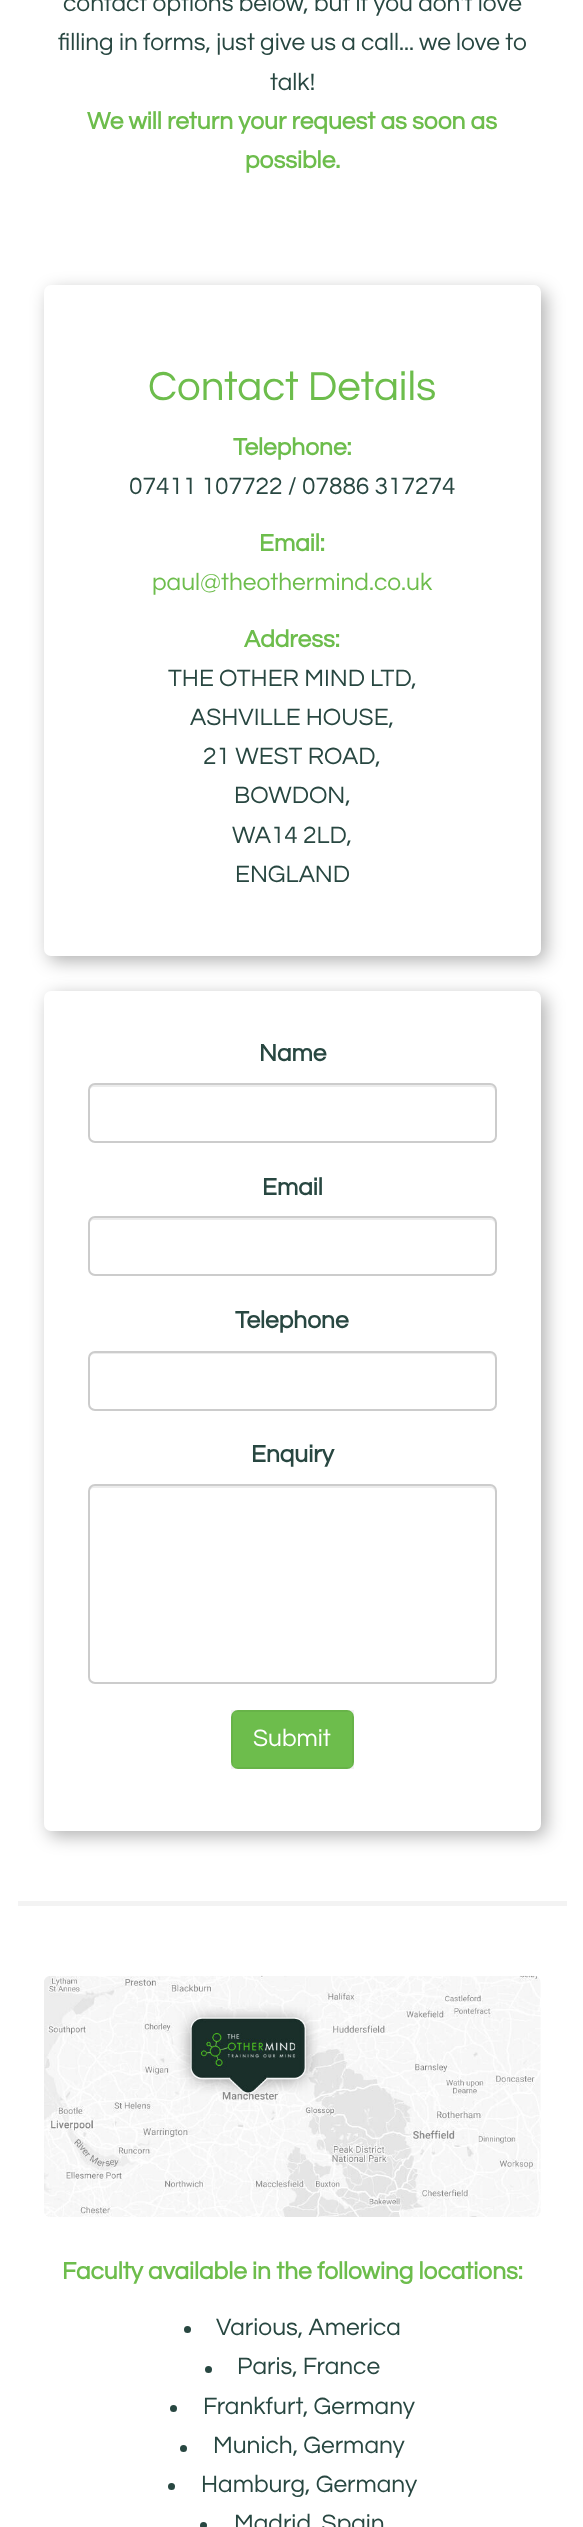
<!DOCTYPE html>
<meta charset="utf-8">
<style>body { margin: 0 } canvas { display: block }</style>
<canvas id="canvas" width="583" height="2527"></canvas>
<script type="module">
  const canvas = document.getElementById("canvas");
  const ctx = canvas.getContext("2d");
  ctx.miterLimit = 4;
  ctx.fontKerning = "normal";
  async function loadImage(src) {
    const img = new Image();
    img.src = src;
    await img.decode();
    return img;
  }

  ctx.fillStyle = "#ffffff";
  ctx.fillRect(0, 0, 583, 2527);
  ctx.font = "24.5px Questrial";
  ctx.fillStyle = "#284741";
  ctx.fillText("contact options below, but if you don't love", 63, 11);
  ctx.fillText("filling in forms, just give us a call... we love to", 58, 50);
  ctx.fillText("talk!", 270, 90);
  ctx.font = "bold 24.5px Questrial";
  ctx.fillStyle = "#6dbd4c";
  ctx.fillText("We will return your request as soon as", 87, 129);
  ctx.fillText("possible.", 245, 168);
  ctx.fillStyle = "#f3f3f3";
  ctx.fillRect(18, 1901, 549, 5);
  ctx.fillStyle = "rgba(0, 0, 0, 0.31)";
  ctx.filter = "blur(9px)";
  ctx.beginPath();
  ctx.roundRect(49, 291, 497, 670, 7);
  ctx.fill();
  ctx.filter = "none";
  ctx.fillStyle = "#ffffff";
  ctx.beginPath();
  ctx.roundRect(48.5, 289.5, 488, 662, 2.5);
  ctx.fill();
  ctx.strokeStyle = "#ffffff";
  ctx.lineWidth = 9;
  ctx.stroke();
  ctx.font = "42px Questrial";
  ctx.fillStyle = "#6dbd4c";
  ctx.fillText("Contact Details", 148, 400);
  ctx.font = "bold 24.5px Questrial";
  ctx.fillText("Telephone:", 233, 455);
  ctx.font = "24.5px Questrial";
  ctx.fillStyle = "#284741";
  ctx.fillText("07411 107722 / 07886 317274", 129, 494);
  ctx.font = "bold 24.5px Questrial";
  ctx.fillStyle = "#6dbd4c";
  ctx.fillText("Email:", 259, 551);
  ctx.font = "24.5px Questrial";
  ctx.fillText("paul@theothermind.co.uk", 152, 590);
  ctx.font = "bold 24.5px Questrial";
  ctx.fillText("Address:", 244, 647);
  ctx.font = "24.5px Questrial";
  ctx.fillStyle = "#284741";
  ctx.fillText("THE OTHER MIND LTD,", 168, 686);
  ctx.fillText("ASHVILLE HOUSE,", 190, 725);
  ctx.fillText("21 WEST ROAD,", 203, 764);
  ctx.fillText("BOWDON,", 234, 803);
  ctx.fillText("WA14 2LD,", 232, 843);
  ctx.fillText("ENGLAND", 235, 882);
  ctx.fillStyle = "rgba(0, 0, 0, 0.31)";
  ctx.filter = "blur(9px)";
  ctx.beginPath();
  ctx.roundRect(49, 996, 497, 840, 7);
  ctx.fill();
  ctx.filter = "none";
  ctx.fillStyle = "#ffffff";
  ctx.beginPath();
  ctx.roundRect(48.5, 995.5, 488, 831, 2.5);
  ctx.fill();
  ctx.stroke();
  ctx.font = "bold 24.5px Questrial";
  ctx.fillStyle = "#284741";
  ctx.fillText("Name", 259, 1061);
  ctx.fillStyle = "#ececec";
  ctx.beginPath();
  ctx.moveTo(94, 1087);
  ctx.lineTo(490, 1087);
  ctx.bezierCurveTo(493, 1087, 495, 1089, 495, 1092);
  ctx.lineTo(495, 1090);
  ctx.bezierCurveTo(495, 1087, 493, 1085, 490, 1085);
  ctx.lineTo(94, 1085);
  ctx.bezierCurveTo(91, 1085, 89, 1087, 89, 1090);
  ctx.lineTo(89, 1092);
  ctx.bezierCurveTo(89, 1089, 92, 1087, 94, 1087);
  ctx.closePath();
  ctx.fill();
  ctx.beginPath();
  ctx.roundRect(89, 1084, 407, 58, 6);
  ctx.strokeStyle = "#cccccc";
  ctx.lineWidth = 2;
  ctx.stroke();
  ctx.fillStyle = "#284741";
  ctx.fillText("Email", 262, 1195);
  ctx.fillStyle = "#ececec";
  ctx.beginPath();
  ctx.moveTo(94, 1220);
  ctx.lineTo(490, 1220);
  ctx.bezierCurveTo(493, 1220, 495, 1222, 495, 1225);
  ctx.lineTo(495, 1223);
  ctx.bezierCurveTo(495, 1220, 493, 1218, 490, 1218);
  ctx.lineTo(94, 1218);
  ctx.bezierCurveTo(91, 1218, 89, 1220, 89, 1223);
  ctx.lineTo(89, 1225);
  ctx.bezierCurveTo(89, 1222, 92, 1220, 94, 1220);
  ctx.closePath();
  ctx.fill();
  ctx.beginPath();
  ctx.roundRect(89, 1217, 407, 58, 6);
  ctx.stroke();
  ctx.fillStyle = "#284741";
  ctx.fillText("Telephone", 235, 1328);
  ctx.fillStyle = "#ececec";
  ctx.beginPath();
  ctx.moveTo(94, 1354);
  ctx.lineTo(490, 1354);
  ctx.bezierCurveTo(493, 1354, 495, 1357, 495, 1360);
  ctx.lineTo(495, 1358);
  ctx.bezierCurveTo(495, 1355, 493, 1353, 490, 1353);
  ctx.lineTo(94, 1353);
  ctx.bezierCurveTo(91, 1353, 89, 1355, 89, 1358);
  ctx.lineTo(89, 1360);
  ctx.bezierCurveTo(89, 1357, 92, 1354, 94, 1354);
  ctx.closePath();
  ctx.fill();
  ctx.beginPath();
  ctx.roundRect(89, 1352, 407, 58, 6);
  ctx.stroke();
  ctx.fillStyle = "#284741";
  ctx.fillText("Enquiry", 251, 1462);
  ctx.fillStyle = "#ececec";
  ctx.beginPath();
  ctx.moveTo(94, 1488);
  ctx.lineTo(490, 1488);
  ctx.bezierCurveTo(493, 1488, 495, 1490, 495, 1493);
  ctx.lineTo(495, 1491);
  ctx.bezierCurveTo(495, 1488, 493, 1486, 490, 1486);
  ctx.lineTo(94, 1486);
  ctx.bezierCurveTo(91, 1486, 89, 1488, 89, 1491);
  ctx.lineTo(89, 1493);
  ctx.bezierCurveTo(89, 1490, 92, 1488, 94, 1488);
  ctx.closePath();
  ctx.fill();
  ctx.beginPath();
  ctx.roundRect(89, 1485, 407, 198, 6);
  ctx.stroke();
  ctx.fillStyle = "#6dbd4c";
  ctx.beginPath();
  ctx.roundRect(231, 1710, 123, 59, 7);
  ctx.fill();
  ctx.strokeStyle = "rgba(0, 0, 0, 0.05)";
  ctx.strokeRect(232, 1711, 121, 57);
  ctx.font = "24.5px Questrial";
  ctx.fillStyle = "#ffffff";
  ctx.fillText("Submit", 253, 1746);
  ctx.drawImage(await loadImage("img1.png"), 44, 1975, 497, 242);
  ctx.font = "bold 24.5px Questrial";
  ctx.fillStyle = "#6dbd4c";
  ctx.fillText("Faculty available in the following locations:", 62, 2279);
  ctx.fillStyle = "#284741";
  ctx.beginPath();
  ctx.arc(187.5, 2329.5, 3.5, 0, Math.PI * 2);
  ctx.fill();
  ctx.font = "24.5px Questrial";
  ctx.fillText("Various, America", 216, 2335);
  ctx.beginPath();
  ctx.arc(208.5, 2369.5, 3.5, 0, Math.PI * 2);
  ctx.fill();
  ctx.fillText("Paris, France", 237, 2374);
  ctx.beginPath();
  ctx.arc(173.5, 2408.5, 3.5, 0, Math.PI * 2);
  ctx.fill();
  ctx.fillText("Frankfurt, Germany", 203, 2414);
  ctx.beginPath();
  ctx.arc(183.5, 2448.5, 3.5, 0, Math.PI * 2);
  ctx.fill();
  ctx.fillText("Munich, Germany", 213, 2453);
  ctx.beginPath();
  ctx.arc(171.5, 2486.5, 3.5, 0, Math.PI * 2);
  ctx.fill();
  ctx.fillText("Hamburg, Germany", 201, 2492);
  ctx.beginPath();
  ctx.arc(203.5, 2525.5, 3.5, 0, Math.PI * 2);
  ctx.fill();
  ctx.fillText("Madrid, Spain", 234, 2531);
</script>
